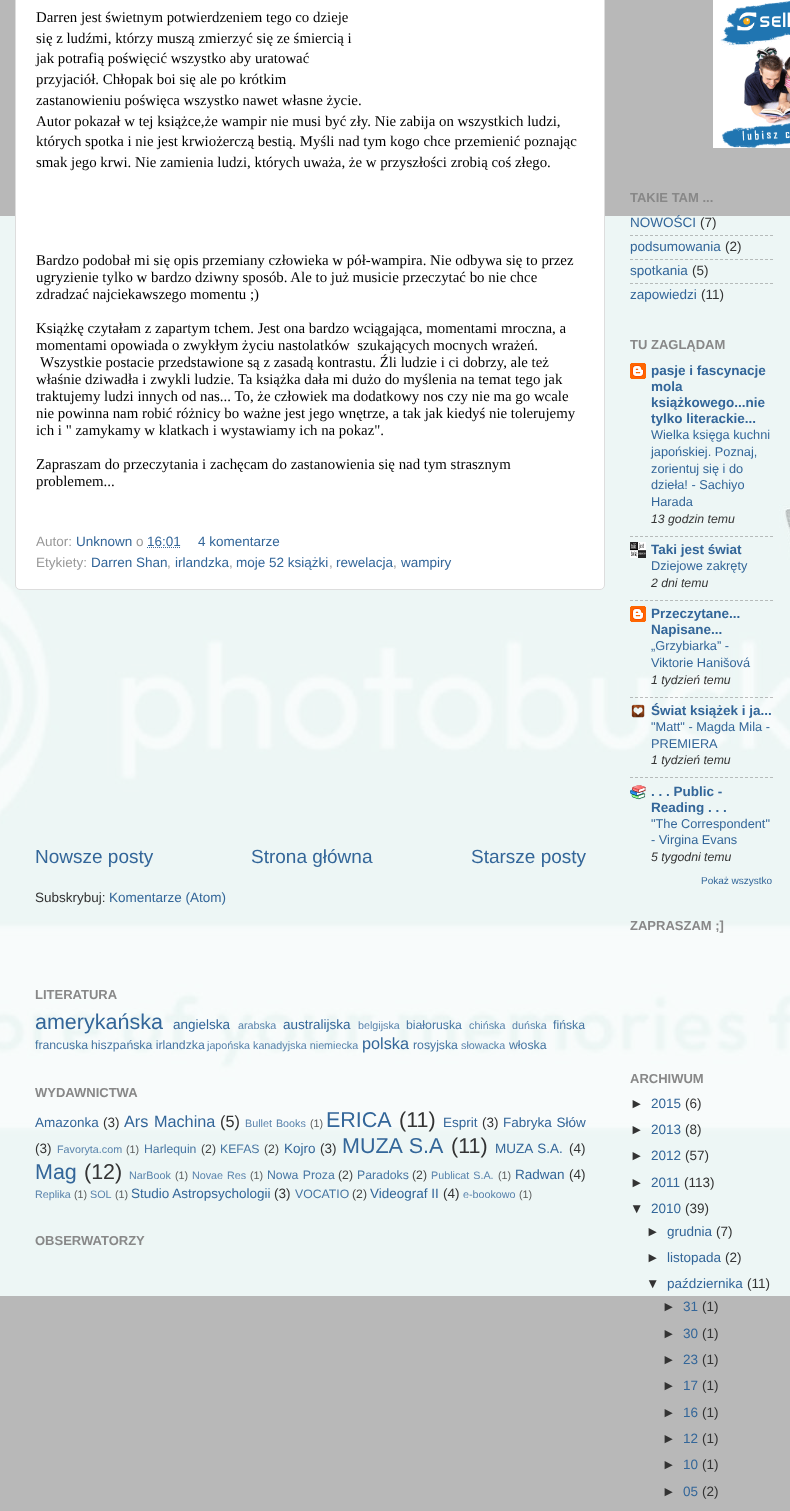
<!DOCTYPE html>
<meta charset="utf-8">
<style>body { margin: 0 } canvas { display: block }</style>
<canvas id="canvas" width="790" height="1511"></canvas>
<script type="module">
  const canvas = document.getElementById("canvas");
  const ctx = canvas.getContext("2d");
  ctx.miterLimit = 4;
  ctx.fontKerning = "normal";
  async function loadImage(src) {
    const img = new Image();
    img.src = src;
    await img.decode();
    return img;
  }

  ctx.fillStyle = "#b8b8b8";
  ctx.fillRect(0, 0, 790, 1511);
  ctx.drawImage(await loadImage("img1.png"), 0, 216, 790, 1080);
  ctx.fillStyle = "#ffffff";
  ctx.beginPath();
  ctx.roundRect(15.5, -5.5, 589, 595, 4.5);
  ctx.fill();
  ctx.strokeStyle = "#dddddd";
  ctx.stroke();
  ctx.font = "14.85px Liberation Serif";
  ctx.fillStyle = "#000000";
  ctx.fillText("Darren jest świetnym potwierdzeniem tego co dzieje", 36, 22);
  ctx.fillText("się z ludźmi, którzy muszą zmierzyć się ze śmiercią i", 36, 43);
  ctx.fillText("jak potrafią poświęcić wszystko aby uratować", 36, 63);
  ctx.fillText("przyjaciół. Chłopak boi się ale po krótkim", 36, 84);
  ctx.fillText("zastanowieniu poświęca wszystko nawet własne życie.", 36, 105);
  ctx.fillText("Autor pokazał w tej książce,że wampir nie musi być zły. Nie zabija on wszystkich ludzi,", 36, 126);
  ctx.fillText("których spotka i nie jest krwiożerczą bestią. Myśli nad tym kogo chce przemienić poznając", 36, 146);
  ctx.fillText("smak jego krwi. Nie zamienia ludzi, których uważa, że w przyszłości zrobią coś złego.", 36, 167);
  ctx.fillText("Bardzo podobał mi się opis przemiany człowieka w pół-wampira. Nie odbywa się to przez", 36, 265);
  ctx.fillText("ugryzienie tylko w bardzo dziwny sposób. Ale to już musicie przeczytać bo nie chce", 36, 282);
  ctx.fillText("zdradzać najciekawszego momentu ;)", 36, 299);
  ctx.fillText("Książkę czytałam z zapartym tchem. Jest ona bardzo wciągająca, momentami mroczna, a", 36, 333);
  ctx.fillText("momentami opowiada o zwykłym życiu nastolatków  szukających mocnych wrażeń.", 36, 350);
  ctx.fillText("Wszystkie postacie przedstawione są z zasadą kontrastu. Źli ludzie i ci dobrzy, ale też", 40, 367);
  ctx.fillText("właśnie dziwadła i zwykli ludzie. Ta książka dała mi dużo do myślenia na temat tego jak", 36, 384);
  ctx.fillText("traktujemy ludzi innych od nas... To, że człowiek ma dodatkowy nos czy nie ma go wcale", 36, 401);
  ctx.fillText("nie powinna nam robić różnicy bo ważne jest jego wnętrze, a tak jak kiedyś nie tolerujemy", 36, 418);
  ctx.fillText("ich i \" zamykamy w klatkach i wystawiamy ich na pokaz\".", 36, 435);
  ctx.fillText("Zapraszam do przeczytania i zachęcam do zastanowienia się nad tym strasznym", 36, 469);
  ctx.fillText("problemem...", 36, 486);
  ctx.font = "13.5px Liberation Sans";
  ctx.fillStyle = "#999999";
  ctx.fillText("Autor:", 36, 546);
  ctx.fillStyle = "#336699";
  ctx.fillText("Unknown", 76, 546);
  ctx.fillStyle = "#999999";
  ctx.fillText("o", 136, 546);
  ctx.fillStyle = "#336699";
  ctx.fillText("16:01", 147, 546);
  ctx.beginPath();
  ctx.moveTo(147, 547.5);
  ctx.lineTo(181, 547.5);
  ctx.strokeStyle = "#336699";
  ctx.setLineDash([1, 1]);
  ctx.stroke();
  ctx.fillText("4 komentarze", 198, 546);
  ctx.fillStyle = "#999999";
  ctx.fillText("Etykiety:", 36, 567);
  ctx.fillStyle = "#336699";
  ctx.fillText("Darren Shan", 91, 567);
  ctx.fillStyle = "#999999";
  ctx.fillText(",", 167, 567);
  ctx.fillStyle = "#336699";
  ctx.fillText("irlandzka", 175, 567);
  ctx.fillStyle = "#999999";
  ctx.fillText(",", 229, 567);
  ctx.fillStyle = "#336699";
  ctx.fillText("moje 52 książki", 236, 567);
  ctx.fillStyle = "#999999";
  ctx.fillText(",", 329, 567);
  ctx.fillStyle = "#336699";
  ctx.fillText("rewelacja", 336, 567);
  ctx.fillStyle = "#999999";
  ctx.fillText(",", 393, 567);
  ctx.fillStyle = "#336699";
  ctx.fillText("wampiry", 401, 567);
  ctx.font = "19px Liberation Sans";
  ctx.fillText("Nowsze posty", 35, 863);
  ctx.fillText("Strona główna", 251, 863);
  ctx.fillText("Starsze posty", 471, 863);
  ctx.font = "13.5px Liberation Sans";
  ctx.fillStyle = "#333333";
  ctx.fillText("Subskrybuj:", 35, 902);
  ctx.fillStyle = "#336699";
  ctx.fillText("Komentarze (Atom)", 109, 902);
  ctx.font = "bold 13px Liberation Sans";
  ctx.fillStyle = "#888888";
  ctx.fillText("LITERATURA", 35, 999);
  ctx.font = "21.5px Liberation Sans";
  ctx.fillStyle = "#336699";
  ctx.fillText("amerykańska", 35, 1029);
  ctx.font = "13.5px Liberation Sans";
  ctx.fillText("angielska", 173, 1029);
  ctx.font = "10.75px Liberation Sans";
  ctx.fillStyle = "#5983ac";
  ctx.fillText("arabska", 238, 1029);
  ctx.font = "13.5px Liberation Sans";
  ctx.fillStyle = "#336699";
  ctx.fillText("australijska", 283, 1029);
  ctx.font = "10.75px Liberation Sans";
  ctx.fillStyle = "#5983ac";
  ctx.fillText("belgijska", 358, 1029);
  ctx.font = "12.25px Liberation Sans";
  ctx.fillStyle = "#4675a2";
  ctx.fillText("białoruska", 406, 1029);
  ctx.font = "10.75px Liberation Sans";
  ctx.fillStyle = "#5983ac";
  ctx.fillText("chińska", 469, 1029);
  ctx.fillText("duńska", 512, 1029);
  ctx.font = "12.25px Liberation Sans";
  ctx.fillStyle = "#4675a2";
  ctx.fillText("fińska", 553, 1029);
  ctx.fillText("francuska", 35, 1049);
  ctx.fillText("hiszpańska irlandzka", 91, 1049);
  ctx.font = "10.75px Liberation Sans";
  ctx.fillStyle = "#5983ac";
  ctx.fillText("japońska", 207, 1049);
  ctx.fillText("kanadyjska niemiecka", 253, 1049);
  ctx.font = "16.25px Liberation Sans";
  ctx.fillStyle = "#336699";
  ctx.fillText("polska", 362, 1049);
  ctx.font = "12.25px Liberation Sans";
  ctx.fillStyle = "#4675a2";
  ctx.fillText("rosyjska", 413, 1049);
  ctx.font = "10.75px Liberation Sans";
  ctx.fillStyle = "#5983ac";
  ctx.fillText("słowacka", 461, 1049);
  ctx.font = "12.25px Liberation Sans";
  ctx.fillStyle = "#4675a2";
  ctx.fillText("włoska", 509, 1049);
  ctx.font = "bold 13px Liberation Sans";
  ctx.fillStyle = "#888888";
  ctx.fillText("WYDAWNICTWA", 35, 1097);
  ctx.font = "13.5px Liberation Sans";
  ctx.fillStyle = "#336699";
  ctx.fillText("Amazonka", 35, 1127);
  ctx.fillStyle = "#333333";
  ctx.fillText("(3)", 103, 1127);
  ctx.wordSpacing = "1px";
  ctx.font = "16.25px Liberation Sans";
  ctx.fillStyle = "#336699";
  ctx.fillText("Ars Machina", 124, 1127);
  ctx.wordSpacing = "0px";
  ctx.fillStyle = "#333333";
  ctx.fillText("(5)", 220, 1127);
  ctx.wordSpacing = "1px";
  ctx.font = "10.75px Liberation Sans";
  ctx.fillStyle = "#5983ac";
  ctx.fillText("Bullet Books", 245, 1127);
  ctx.wordSpacing = "0px";
  ctx.fillStyle = "#5a5b5b";
  ctx.fillText("(1)", 310, 1127);
  ctx.font = "21.5px Liberation Sans";
  ctx.fillStyle = "#336699";
  ctx.fillText("ERICA", 326, 1127);
  ctx.fillStyle = "#333333";
  ctx.fillText("(11)", 399, 1127);
  ctx.font = "13.5px Liberation Sans";
  ctx.fillStyle = "#336699";
  ctx.fillText("Esprit", 443, 1127);
  ctx.fillStyle = "#333333";
  ctx.fillText("(3)", 482, 1127);
  ctx.wordSpacing = "1px";
  ctx.fillStyle = "#336699";
  ctx.fillText("Fabryka Słów", 503, 1127);
  ctx.wordSpacing = "0px";
  ctx.fillStyle = "#333333";
  ctx.fillText("(3)", 35, 1153);
  ctx.font = "10.75px Liberation Sans";
  ctx.fillStyle = "#5983ac";
  ctx.fillText("Favoryta.com", 57, 1153);
  ctx.fillStyle = "#5a5b5b";
  ctx.fillText("(1)", 126, 1153);
  ctx.font = "12.25px Liberation Sans";
  ctx.fillStyle = "#4675a2";
  ctx.fillText("Harlequin", 144, 1153);
  ctx.fillStyle = "#464746";
  ctx.fillText("(2)", 201, 1153);
  ctx.fillStyle = "#4675a2";
  ctx.fillText("KEFAS", 220, 1153);
  ctx.fillStyle = "#464746";
  ctx.fillText("(2)", 264, 1153);
  ctx.font = "13.5px Liberation Sans";
  ctx.fillStyle = "#336699";
  ctx.fillText("Kojro", 284, 1153);
  ctx.fillStyle = "#333333";
  ctx.fillText("(3)", 320, 1153);
  ctx.wordSpacing = "1px";
  ctx.font = "21.5px Liberation Sans";
  ctx.fillStyle = "#336699";
  ctx.fillText("MUZA S.A", 342, 1153);
  ctx.wordSpacing = "0px";
  ctx.fillStyle = "#333333";
  ctx.fillText("(11)", 451, 1153);
  ctx.wordSpacing = "1px";
  ctx.font = "13.5px Liberation Sans";
  ctx.fillStyle = "#336699";
  ctx.fillText("MUZA S.A.", 495, 1153);
  ctx.wordSpacing = "0px";
  ctx.fillStyle = "#333333";
  ctx.fillText("(4)", 569, 1153);
  ctx.font = "21.5px Liberation Sans";
  ctx.fillStyle = "#336699";
  ctx.fillText("Mag", 35, 1179);
  ctx.fillStyle = "#333333";
  ctx.fillText("(12)", 84, 1179);
  ctx.font = "10.75px Liberation Sans";
  ctx.fillStyle = "#5983ac";
  ctx.fillText("NarBook", 129, 1179);
  ctx.fillStyle = "#5a5b5b";
  ctx.fillText("(1)", 175, 1179);
  ctx.wordSpacing = "1px";
  ctx.fillStyle = "#5983ac";
  ctx.fillText("Novae Res", 192, 1179);
  ctx.wordSpacing = "0px";
  ctx.fillStyle = "#5a5b5b";
  ctx.fillText("(1)", 250, 1179);
  ctx.wordSpacing = "1px";
  ctx.font = "12.25px Liberation Sans";
  ctx.fillStyle = "#4675a2";
  ctx.fillText("Nowa Proza", 267, 1179);
  ctx.wordSpacing = "0px";
  ctx.fillStyle = "#464746";
  ctx.fillText("(2)", 338, 1179);
  ctx.fillStyle = "#4675a2";
  ctx.fillText("Paradoks", 357, 1179);
  ctx.fillStyle = "#464746";
  ctx.fillText("(2)", 412, 1179);
  ctx.wordSpacing = "1px";
  ctx.font = "10.75px Liberation Sans";
  ctx.fillStyle = "#5983ac";
  ctx.fillText("Publicat S.A.", 431, 1179);
  ctx.wordSpacing = "0px";
  ctx.fillStyle = "#5a5b5b";
  ctx.fillText("(1)", 498, 1179);
  ctx.font = "13.5px Liberation Sans";
  ctx.fillStyle = "#336699";
  ctx.fillText("Radwan", 515, 1179);
  ctx.fillStyle = "#333333";
  ctx.fillText("(4)", 569, 1179);
  ctx.font = "10.75px Liberation Sans";
  ctx.fillStyle = "#5983ac";
  ctx.fillText("Replika", 35, 1198);
  ctx.fillStyle = "#5a5b5b";
  ctx.fillText("(1)", 74, 1198);
  ctx.fillStyle = "#5983ac";
  ctx.fillText("SOL", 90, 1198);
  ctx.fillStyle = "#5a5b5b";
  ctx.fillText("(1)", 115, 1198);
  ctx.font = "13.5px Liberation Sans";
  ctx.fillStyle = "#336699";
  ctx.fillText("Studio Astropsychologii", 131, 1198);
  ctx.fillStyle = "#333333";
  ctx.fillText("(3)", 274, 1198);
  ctx.font = "12.25px Liberation Sans";
  ctx.fillStyle = "#4675a2";
  ctx.fillText("VOCATIO", 295, 1198);
  ctx.fillStyle = "#464746";
  ctx.fillText("(2)", 352, 1198);
  ctx.font = "13.5px Liberation Sans";
  ctx.fillStyle = "#336699";
  ctx.fillText("Videograf II", 370, 1198);
  ctx.fillStyle = "#333333";
  ctx.fillText("(4)", 443, 1198);
  ctx.font = "10.75px Liberation Sans";
  ctx.fillStyle = "#5983ac";
  ctx.fillText("e-bookowo", 463, 1198);
  ctx.fillStyle = "#5a5b5b";
  ctx.fillText("(1)", 519, 1198);
  ctx.font = "bold 13px Liberation Sans";
  ctx.fillStyle = "#888888";
  ctx.fillText("OBSERWATORZY", 35, 1245);
  ctx.drawImage(await loadImage("img2.png"), 713, 0, 77, 148);
  ctx.fillText("TAKIE TAM ...", 630, 202);
  ctx.font = "13.5px Liberation Sans";
  ctx.fillStyle = "#336699";
  ctx.fillText("NOWOŚCI", 630, 227);
  ctx.fillStyle = "#333333";
  ctx.fillText("(7)", 700, 227);
  ctx.beginPath();
  ctx.moveTo(630, 235.5);
  ctx.lineTo(773, 235.5);
  ctx.strokeStyle = "#b6bbba";
  ctx.setLineDash([3, 2]);
  ctx.stroke();
  ctx.fillStyle = "#336699";
  ctx.fillText("podsumowania", 630, 251);
  ctx.fillStyle = "#333333";
  ctx.fillText("(2)", 725, 251);
  ctx.beginPath();
  ctx.moveTo(630, 259.5);
  ctx.lineTo(773, 259.5);
  ctx.stroke();
  ctx.fillStyle = "#336699";
  ctx.fillText("spotkania", 630, 275);
  ctx.fillStyle = "#333333";
  ctx.fillText("(5)", 692, 275);
  ctx.beginPath();
  ctx.moveTo(630, 283.5);
  ctx.lineTo(773, 283.5);
  ctx.stroke();
  ctx.fillStyle = "#336699";
  ctx.fillText("zapowiedzi", 630, 299);
  ctx.fillStyle = "#333333";
  ctx.fillText("(11)", 701, 299);
  ctx.font = "bold 13px Liberation Sans";
  ctx.fillStyle = "#888888";
  ctx.fillText("TU ZAGLĄDAM", 630, 349);
  ctx.drawImage(await loadImage("img3.png"), 630, 363, 16, 16);
  ctx.font = "bold 13.5px Liberation Sans";
  ctx.fillStyle = "#336699";
  ctx.fillText("pasje i fascynacje", 651, 375);
  ctx.fillText("mola", 651, 391);
  ctx.fillText("książkowego...nie", 651, 407);
  ctx.fillText("tylko literackie...", 651, 423);
  ctx.font = "12.75px Liberation Sans";
  ctx.fillText("Wielka księga kuchni", 651, 439);
  ctx.fillText("japońskiej. Poznaj,", 651, 456);
  ctx.fillText("zorientuj się i do", 651, 473);
  ctx.fillText("dzieła! - Sachiyo", 651, 489);
  ctx.fillText("Harada", 651, 506);
  ctx.font = "italic 12.25px Liberation Sans";
  ctx.fillStyle = "#333333";
  ctx.fillText("13 godzin temu", 651, 523);
  ctx.beginPath();
  ctx.moveTo(630, 536.5);
  ctx.lineTo(773, 536.5);
  ctx.stroke();
  ctx.drawImage(await loadImage("img4.png"), 630, 542, 16, 16);
  ctx.font = "bold 13.5px Liberation Sans";
  ctx.fillStyle = "#336699";
  ctx.fillText("Taki jest świat", 651, 554);
  ctx.font = "12.75px Liberation Sans";
  ctx.fillText("Dziejowe zakręty", 651, 570);
  ctx.font = "italic 12.25px Liberation Sans";
  ctx.fillStyle = "#333333";
  ctx.fillText("2 dni temu", 651, 587);
  ctx.beginPath();
  ctx.moveTo(630, 600.5);
  ctx.lineTo(773, 600.5);
  ctx.stroke();
  ctx.drawImage(await loadImage("img3.png"), 630, 606, 16, 16);
  ctx.font = "bold 13.5px Liberation Sans";
  ctx.fillStyle = "#336699";
  ctx.fillText("Przeczytane...", 651, 618);
  ctx.fillText("Napisane...", 651, 634);
  ctx.font = "12.75px Liberation Sans";
  ctx.fillText("„Grzybiarka” -", 651, 650);
  ctx.fillText("Viktorie Hanišová", 651, 667);
  ctx.font = "italic 12.25px Liberation Sans";
  ctx.fillStyle = "#333333";
  ctx.fillText("1 tydzień temu", 651, 684);
  ctx.beginPath();
  ctx.moveTo(630, 697.5);
  ctx.lineTo(773, 697.5);
  ctx.strokeStyle = "rgba(128, 128, 128, 0.5)";
  ctx.stroke();
  ctx.drawImage(await loadImage("img5.png"), 631, 704, 14, 14);
  ctx.font = "bold 13.5px Liberation Sans";
  ctx.fillStyle = "#336699";
  ctx.fillText("Świat książek i ja...", 651, 715);
  ctx.font = "12.75px Liberation Sans";
  ctx.fillText("\"Matt\" - Magda Mila -", 651, 731);
  ctx.fillText("PREMIERA", 651, 748);
  ctx.font = "italic 12.25px Liberation Sans";
  ctx.fillStyle = "#333333";
  ctx.fillText("1 tydzień temu", 651, 764);
  ctx.beginPath();
  ctx.moveTo(630, 777.5);
  ctx.lineTo(773, 777.5);
  ctx.strokeStyle = "#b6bbba";
  ctx.stroke();
  ctx.drawImage(await loadImage("img6.png"), 630, 785, 16, 15);
  ctx.font = "bold 13.5px Liberation Sans";
  ctx.fillStyle = "#336699";
  ctx.fillText(". . . Public -", 651, 796);
  ctx.fillText("Reading . . .", 651, 812);
  ctx.font = "12.75px Liberation Sans";
  ctx.fillText("\"The Correspondent\"", 651, 828);
  ctx.fillText("- Virgina Evans", 651, 844);
  ctx.font = "italic 12.25px Liberation Sans";
  ctx.fillStyle = "#333333";
  ctx.fillText("5 tygodni temu", 651, 861);
  ctx.font = "10px Liberation Sans";
  ctx.fillStyle = "#336699";
  ctx.fillText("Pokaż wszystko", 701, 884);
  ctx.font = "bold 13px Liberation Sans";
  ctx.fillStyle = "#888888";
  ctx.fillText("ZAPRASZAM ;]", 630, 930);
  ctx.fillText("ARCHIWUM", 630, 1083);
  ctx.font = "13.5px Liberation Sans";
  ctx.fillStyle = "#333333";
  ctx.fillText("►", 630, 1108);
  ctx.fillStyle = "#336699";
  ctx.fillText("2015", 651, 1108);
  ctx.fillStyle = "#333333";
  ctx.fillText("(6)", 685, 1108);
  ctx.fillText("►", 630, 1134);
  ctx.fillStyle = "#336699";
  ctx.fillText("2013", 651, 1134);
  ctx.fillStyle = "#333333";
  ctx.fillText("(8)", 685, 1134);
  ctx.fillText("►", 630, 1160);
  ctx.fillStyle = "#336699";
  ctx.fillText("2012", 651, 1160);
  ctx.fillStyle = "#333333";
  ctx.fillText("(57)", 685, 1160);
  ctx.fillText("►", 630, 1187);
  ctx.fillStyle = "#336699";
  ctx.fillText("2011", 651, 1187);
  ctx.fillStyle = "#333333";
  ctx.fillText("(113)", 684, 1187);
  ctx.fillText("▼", 630, 1213);
  ctx.fillStyle = "#336699";
  ctx.fillText("2010", 651, 1213);
  ctx.fillStyle = "#333333";
  ctx.fillText("(39)", 685, 1213);
  ctx.fillText("►", 646, 1236);
  ctx.fillStyle = "#336699";
  ctx.fillText("grudnia", 667, 1236);
  ctx.fillStyle = "#333333";
  ctx.fillText("(7)", 716, 1236);
  ctx.fillText("►", 646, 1262);
  ctx.fillStyle = "#336699";
  ctx.fillText("listopada", 667, 1262);
  ctx.fillStyle = "#333333";
  ctx.fillText("(2)", 725, 1262);
  ctx.fillText("▼", 646, 1288);
  ctx.fillStyle = "#336699";
  ctx.fillText("października", 667, 1288);
  ctx.fillStyle = "#333333";
  ctx.fillText("(11)", 747, 1288);
  ctx.fillText("►", 662, 1311);
  ctx.fillStyle = "#336699";
  ctx.fillText("31", 683, 1311);
  ctx.fillStyle = "#333333";
  ctx.fillText("(1)", 702, 1311);
  ctx.fillText("►", 662, 1338);
  ctx.fillStyle = "#336699";
  ctx.fillText("30", 683, 1338);
  ctx.fillStyle = "#333333";
  ctx.fillText("(1)", 702, 1338);
  ctx.fillText("►", 662, 1364);
  ctx.fillStyle = "#336699";
  ctx.fillText("23", 683, 1364);
  ctx.fillStyle = "#333333";
  ctx.fillText("(1)", 702, 1364);
  ctx.fillText("►", 662, 1390);
  ctx.fillStyle = "#336699";
  ctx.fillText("17", 683, 1390);
  ctx.fillStyle = "#333333";
  ctx.fillText("(1)", 702, 1390);
  ctx.fillText("►", 662, 1417);
  ctx.fillStyle = "#336699";
  ctx.fillText("16", 683, 1417);
  ctx.fillStyle = "#333333";
  ctx.fillText("(1)", 702, 1417);
  ctx.fillText("►", 662, 1443);
  ctx.fillStyle = "#336699";
  ctx.fillText("12", 683, 1443);
  ctx.fillStyle = "#333333";
  ctx.fillText("(1)", 702, 1443);
  ctx.fillText("►", 662, 1469);
  ctx.fillStyle = "#336699";
  ctx.fillText("10", 683, 1469);
  ctx.fillStyle = "#333333";
  ctx.fillText("(1)", 702, 1469);
  ctx.fillText("►", 662, 1496);
  ctx.fillStyle = "#336699";
  ctx.fillText("05", 683, 1496);
  ctx.fillStyle = "#333333";
  ctx.fillText("(2)", 702, 1496);
</script>
